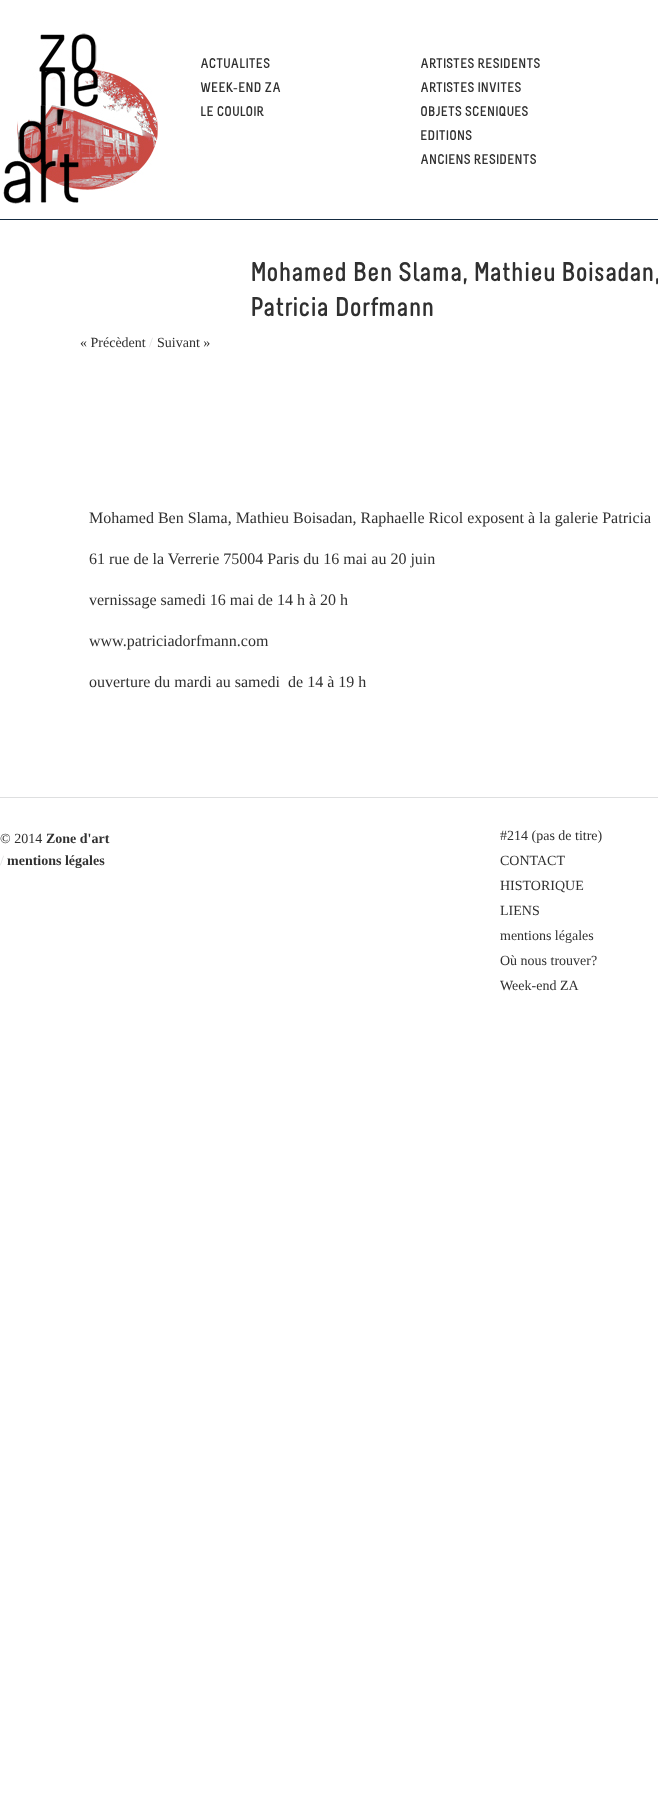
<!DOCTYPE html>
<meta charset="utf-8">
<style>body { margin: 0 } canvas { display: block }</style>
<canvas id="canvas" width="658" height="1795"></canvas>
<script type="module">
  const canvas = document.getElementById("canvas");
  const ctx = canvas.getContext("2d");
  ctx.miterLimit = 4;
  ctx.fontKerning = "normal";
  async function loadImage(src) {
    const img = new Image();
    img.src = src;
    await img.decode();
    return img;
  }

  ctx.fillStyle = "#ffffff";
  ctx.fillRect(0, 0, 658, 1795);
  ctx.fillStyle = "#152b41";
  ctx.fillRect(0, 219, 658, 1);
  ctx.drawImage(await loadImage("img1.png"), 3, 33, 155, 171);
  ctx.font = "bold 14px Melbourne";
  ctx.fillStyle = "#303030";
  ctx.fillText("ACTUALITES", 200, 68);
  ctx.fillText("WEEK", 200, 92);
  ctx.font = "14px Liberation Serif";
  ctx.fillText("-", 233, 92);
  ctx.font = "bold 14px Melbourne";
  ctx.fillText("END ZA", 238, 92);
  ctx.fillText("LE COULOIR", 200, 116);
  ctx.fillText("ARTISTES RESIDENTS", 420, 68);
  ctx.fillText("ARTISTES INVITES", 420, 92);
  ctx.fillText("OBJETS SCENIQUES", 420, 116);
  ctx.fillText("EDITIONS", 420, 140);
  ctx.fillText("ANCIENS RESIDENTS", 420, 164);
  ctx.font = "bold 27px Melbourne";
  ctx.fillText("Mohamed Ben Slama, Mathieu Boisadan,", 250, 281);
  ctx.fillText("Patricia Dorfmann", 250, 316);
  ctx.font = "14px Liberation Serif";
  ctx.fillText("« Précèdent", 80, 347);
  ctx.fillStyle = "#dedfe0";
  ctx.fillText("/", 149, 347);
  ctx.fillStyle = "#303030";
  ctx.fillText("Suivant »", 157, 347);
  ctx.font = "16px Liberation Serif";
  ctx.fillText("Mohamed Ben Slama, Mathieu Boisadan, Raphaelle Ricol exposent à la galerie Patricia", 89, 523);
  ctx.fillText("61 rue de la Verrerie 75004 Paris du 16 mai au 20 juin", 89, 564);
  ctx.fillText("vernissage samedi 16 mai de 14 h à 20 h", 89, 605);
  ctx.fillText("www.patriciadorfmann.com", 89, 646);
  ctx.fillText("ouverture du mardi au samedi  de 14 à 19 h", 89, 687);
  ctx.fillStyle = "#dedfe0";
  ctx.fillRect(0, 797, 658, 1);
  ctx.font = "14px Liberation Serif";
  ctx.fillStyle = "#303030";
  ctx.fillText("© 2014", 0, 843);
  ctx.font = "bold 14px Liberation Serif";
  ctx.fillText("Zone d'art", 46, 843);
  ctx.font = "14px Liberation Serif";
  ctx.fillStyle = "#dedfe0";
  ctx.fillText("/", 0, 865);
  ctx.font = "bold 14px Liberation Serif";
  ctx.fillStyle = "#303030";
  ctx.fillText("mentions légales", 7, 865);
  ctx.font = "14px Liberation Serif";
  ctx.fillText("#214 (pas de titre)", 500, 840);
  ctx.fillText("CONTACT", 500, 865);
  ctx.fillText("HISTORIQUE", 500, 890);
  ctx.fillText("LIENS", 500, 915);
  ctx.fillText("mentions légales", 500, 940);
  ctx.fillText("Où nous trouver?", 500, 965);
  ctx.fillText("Week-end ZA", 500, 990);
</script>
